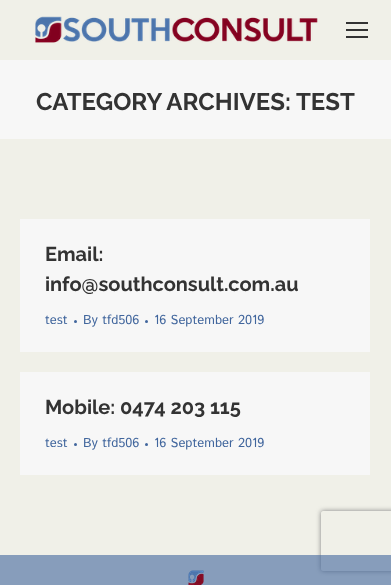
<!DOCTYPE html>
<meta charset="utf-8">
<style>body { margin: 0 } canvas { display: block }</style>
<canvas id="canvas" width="391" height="585"></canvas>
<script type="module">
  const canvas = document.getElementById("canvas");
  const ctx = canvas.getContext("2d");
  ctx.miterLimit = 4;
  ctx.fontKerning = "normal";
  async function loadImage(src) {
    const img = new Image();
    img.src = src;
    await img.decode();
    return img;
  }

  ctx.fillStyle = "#f0f0e8";
  ctx.fillRect(0, 0, 391, 585);
  ctx.drawImage(await loadImage("img1.png"), 35, 16, 283, 27);
  ctx.fillStyle = "#333333";
  ctx.fillRect(346, 22, 22, 2);
  ctx.fillRect(346, 29, 22, 2);
  ctx.fillRect(346, 36, 22, 2);
  ctx.fillStyle = "#f7f7f7";
  ctx.fillRect(0, 60, 391, 79);
  ctx.font = "100 24px Raleway";
  ctx.fillStyle = "#333333";
  ctx.fillText("CATEGORY ARCHIVES:", 36, 110);
  ctx.fillText("TEST", 296, 110);
  ctx.fillStyle = "#f7f7f7";
  ctx.fillRect(20, 219, 350, 133);
  ctx.font = "100 20px Raleway";
  ctx.fillStyle = "#333333";
  ctx.fillText("Email:", 45, 261);
  ctx.fillText("info@southconsult.com.au", 45, 291);
  ctx.font = "13px Istok Web";
  ctx.fillStyle = "#41669d";
  ctx.fillText("test", 45, 324);
  ctx.beginPath();
  ctx.arc(75.5, 321.5, 1.5, 0, Math.PI * 2);
  ctx.fill();
  ctx.fillText("By tfd506", 83, 324);
  ctx.beginPath();
  ctx.arc(146.5, 321.5, 1.5, 0, Math.PI * 2);
  ctx.fill();
  ctx.fillText("16 September 2019", 154, 324);
  ctx.fillStyle = "#f7f7f7";
  ctx.fillRect(20, 372, 350, 103);
  ctx.font = "100 20px Raleway";
  ctx.fillStyle = "#333333";
  ctx.fillText("Mobile: 0474 203 115", 45, 414);
  ctx.font = "13px Istok Web";
  ctx.fillStyle = "#41669d";
  ctx.fillText("test", 45, 447);
  ctx.beginPath();
  ctx.arc(75.5, 444.5, 1.5, 0, Math.PI * 2);
  ctx.fill();
  ctx.fillText("By tfd506", 83, 447);
  ctx.beginPath();
  ctx.arc(146.5, 444.5, 1.5, 0, Math.PI * 2);
  ctx.fill();
  ctx.fillText("16 September 2019", 154, 447);
  ctx.save();
  ctx.beginPath();
  ctx.moveTo(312, 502);
  ctx.lineTo(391, 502);
  ctx.lineTo(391, 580);
  ctx.lineTo(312, 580);
  ctx.closePath();
  ctx.moveTo(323, 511);
  ctx.lineTo(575, 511);
  ctx.bezierCurveTo(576, 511, 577, 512, 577, 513);
  ctx.lineTo(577, 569);
  ctx.bezierCurveTo(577, 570, 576, 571, 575, 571);
  ctx.lineTo(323, 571);
  ctx.bezierCurveTo(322, 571, 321, 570, 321, 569);
  ctx.lineTo(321, 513);
  ctx.bezierCurveTo(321, 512, 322, 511, 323, 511);
  ctx.closePath();
  ctx.clip("evenodd");
  ctx.fillStyle = "#808080";
  ctx.filter = "blur(2.5px)";
  ctx.beginPath();
  ctx.roundRect(321, 511, 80, 60, 2);
  ctx.fill();
  ctx.filter = "none";
  ctx.restore();
  ctx.fillStyle = "rgba(65, 102, 157, 0.6)";
  ctx.fillRect(0, 555, 391, 30);
  ctx.drawImage(await loadImage("img2.png"), 188, 570, 16, 15);
</script>
